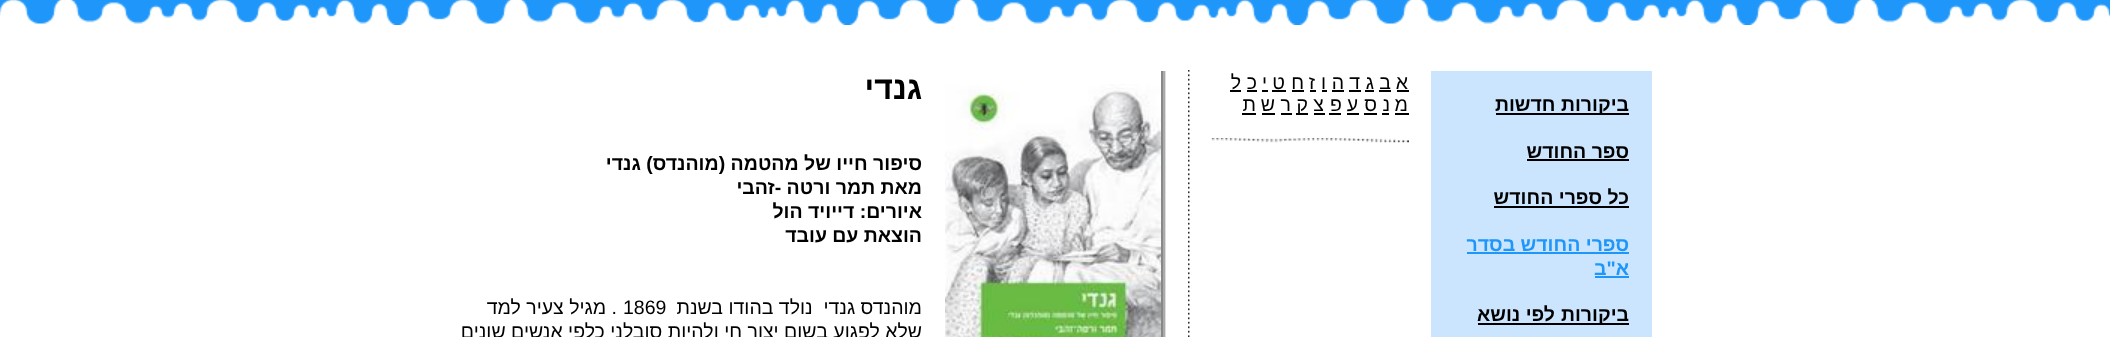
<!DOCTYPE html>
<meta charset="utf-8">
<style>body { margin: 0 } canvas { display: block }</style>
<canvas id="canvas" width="2110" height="337"></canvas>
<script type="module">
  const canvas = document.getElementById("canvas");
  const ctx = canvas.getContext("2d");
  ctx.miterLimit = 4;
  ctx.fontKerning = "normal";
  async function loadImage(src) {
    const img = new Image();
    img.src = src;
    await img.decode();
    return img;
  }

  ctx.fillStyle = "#ffffff";
  ctx.fillRect(0, 0, 2110, 337);
  ctx.drawImage(await loadImage("img1.png"), 0, 0, 2110, 25);
  ctx.fillStyle = "#cce5ff";
  ctx.fillRect(1431, 71, 221, 266);
  ctx.fillStyle = "#000000";
  ctx.fillRect(1496, 113, 133, 2);
  ctx.direction = "rtl";
  ctx.font = "bold 19.5px Liberation Sans";
  ctx.fillText("ביקורות חדשות", 1629, 111);
  ctx.fillText("ספר החודש", 1629, 158);
  ctx.fillRect(1527, 159, 102, 2);
  ctx.fillText("כל", 1629, 204);
  ctx.fillText("ספרי החודש", 1602, 204);
  ctx.fillRect(1494, 206, 135, 2);
  ctx.fillStyle = "#1e96fa";
  ctx.fillText("ספרי החודש בסדר", 1629, 251);
  ctx.fillRect(1467, 252, 162, 2);
  ctx.fillText("א\"ב", 1629, 275);
  ctx.fillRect(1595, 276, 34, 2);
  ctx.fillStyle = "#000000";
  ctx.fillRect(1478, 323, 151, 2);
  ctx.fillText("ביקורות", 1629, 321);
  ctx.fillText("לפי נושא", 1555, 321);
  ctx.font = "19.5px Liberation Sans";
  ctx.fillText("א", 1408, 89);
  ctx.fillRect(1397, 90, 12, 2);
  ctx.fillText("ב", 1391, 89);
  ctx.fillRect(1379, 90, 12, 2);
  ctx.fillText("ג", 1374, 89);
  ctx.fillRect(1365, 90, 9, 2);
  ctx.fillText("ד", 1360, 89);
  ctx.fillRect(1349, 90, 12, 2);
  ctx.fillText("ה", 1344, 89);
  ctx.fillRect(1332, 90, 12, 2);
  ctx.fillText("ו", 1326, 89);
  ctx.fillRect(1322, 90, 5, 2);
  ctx.fillText("ז", 1315, 89);
  ctx.fillRect(1310, 90, 6, 2);
  ctx.fillText("ח", 1304, 89);
  ctx.fillRect(1292, 90, 12, 2);
  ctx.fillText("ט", 1285, 89);
  ctx.fillRect(1272, 90, 14, 2);
  ctx.fillText("י", 1267, 89);
  ctx.fillRect(1262, 90, 6, 2);
  ctx.fillText("כ", 1257, 89);
  ctx.fillRect(1247, 90, 10, 2);
  ctx.fillText("ל", 1241, 89);
  ctx.fillRect(1230, 90, 11, 2);
  ctx.fillText("מ", 1408, 111);
  ctx.fillRect(1395, 113, 14, 2);
  ctx.fillText("נ", 1390, 111);
  ctx.fillRect(1382, 113, 7, 2);
  ctx.fillText("ס", 1377, 111);
  ctx.fillRect(1364, 113, 13, 2);
  ctx.fillText("ע", 1358, 111);
  ctx.fillRect(1347, 113, 12, 2);
  ctx.fillText("פ", 1342, 111);
  ctx.fillRect(1329, 113, 12, 2);
  ctx.fillText("צ", 1324, 111);
  ctx.fillRect(1314, 113, 11, 2);
  ctx.fillRect(1296, 113, 12, 2);
  ctx.fillText("ק", 1308, 111);
  ctx.fillText("ר", 1291, 111);
  ctx.fillRect(1281, 113, 11, 2);
  ctx.fillText("ש", 1275, 111);
  ctx.fillRect(1262, 113, 13, 2);
  ctx.fillText("ת", 1256, 111);
  ctx.fillRect(1242, 113, 14, 2);
  ctx.drawImage(await loadImage("img2.png"), 1211, 138, 198, 5);
  ctx.drawImage(await loadImage("img3.png"), 1188, 70, 2, 267);
  ctx.fillStyle = "#dddddd";
  ctx.fillRect(1165, 71, 1, 266);
  ctx.fillStyle = "#aaaaaa";
  ctx.fillRect(1163, 71, 2, 266);
  ctx.fillStyle = "#888888";
  ctx.fillRect(1161, 71, 2, 266);
  ctx.drawImage(await loadImage("img4.png"), 945, 84, 216, 253);
  ctx.font = "bold 32px Liberation Sans";
  ctx.fillStyle = "#000000";
  ctx.fillText("גנדי", 922, 99);
  ctx.font = "bold 19.5px Liberation Sans";
  ctx.fillText("סיפור חייו של מהטמה (מוהנדס) גנדי", 922, 170);
  ctx.fillText("מאת תמר ורטה -זהבי", 922, 194);
  ctx.fillText("איורים: דייויד הול", 922, 218);
  ctx.fillText("הוצאת עם", 922, 242);
  ctx.fillText("עובד", 827, 242);
  ctx.font = "19.5px Liberation Sans";
  ctx.fillText("מוהנדס גנדי  נולד בהודו בשנת", 922, 314);
  ctx.direction = "ltr";
  ctx.fillText("1869", 623, 314);
  ctx.direction = "rtl";
  ctx.fillText(". מגיל צעיר למד", 617, 314);
  ctx.fillText("שלא לפגוע בשום יצור חי ולהיות סובלני כלפי אנשים שונים", 922, 338);
</script>
